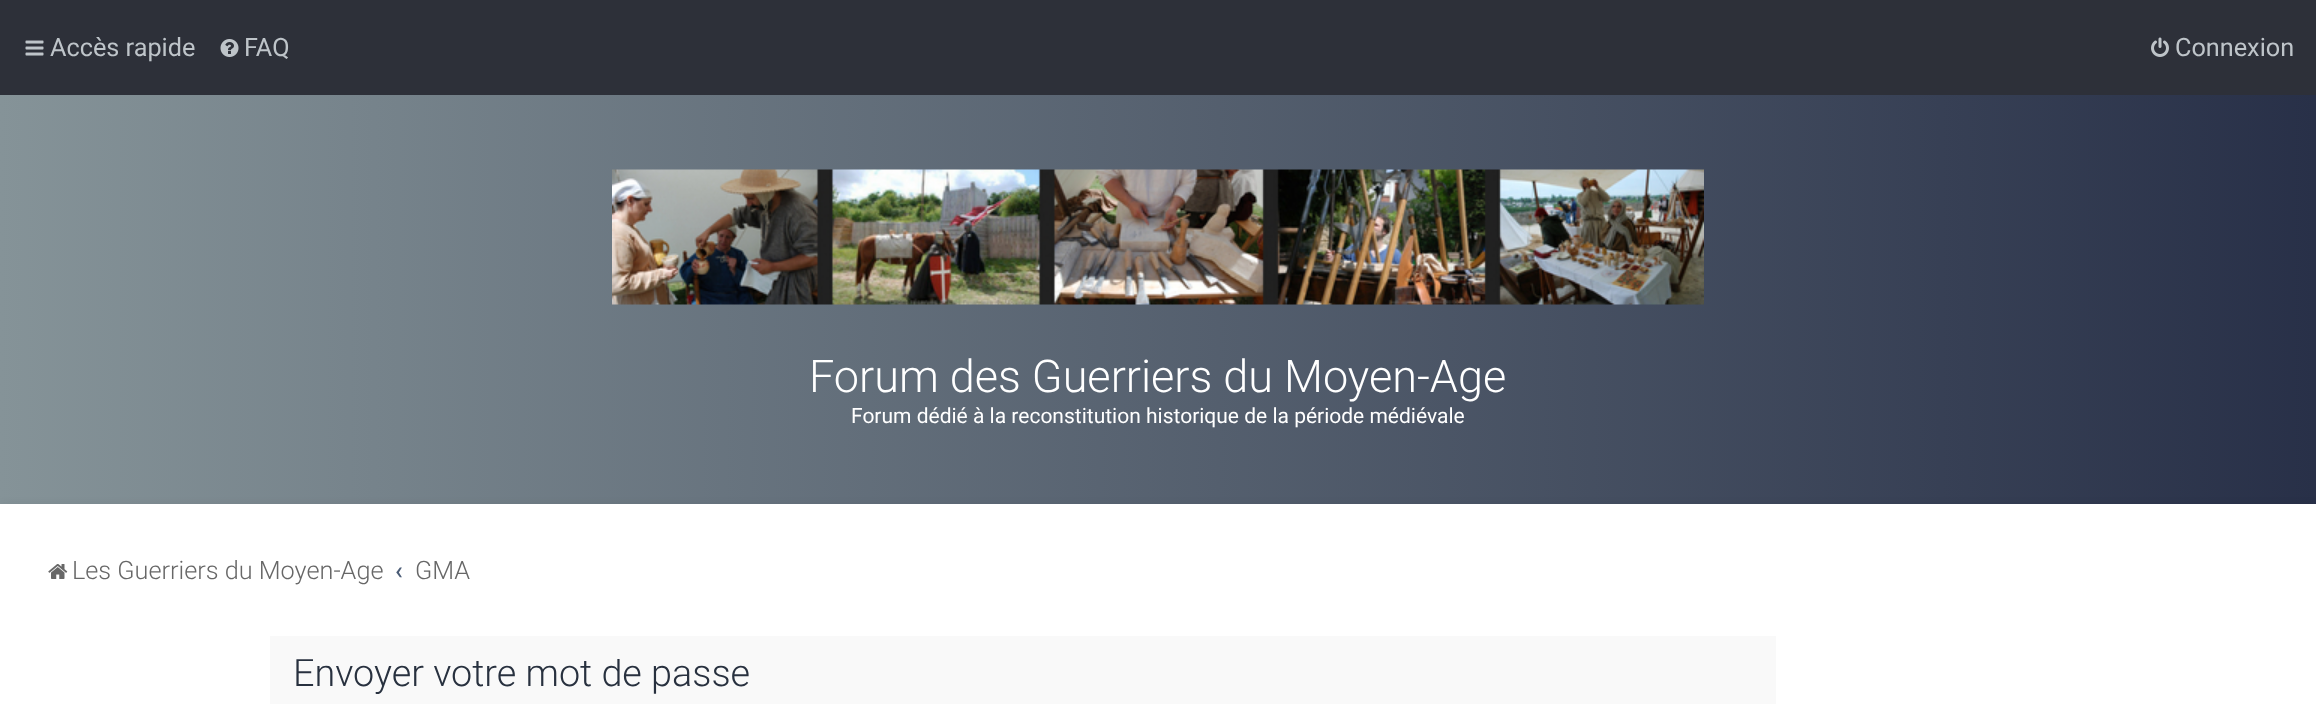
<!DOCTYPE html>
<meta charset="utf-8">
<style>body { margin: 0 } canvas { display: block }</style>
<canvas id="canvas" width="2316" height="704"></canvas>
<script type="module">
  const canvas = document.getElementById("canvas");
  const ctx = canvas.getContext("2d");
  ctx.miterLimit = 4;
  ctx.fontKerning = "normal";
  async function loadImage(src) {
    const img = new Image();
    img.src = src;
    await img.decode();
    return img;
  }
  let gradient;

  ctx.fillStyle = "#ffffff";
  ctx.fillRect(0, 0, 2316, 704);
  ctx.fillStyle = "#2d3039";
  ctx.fillRect(0, 0, 2316, 95);
  ctx.drawImage(await loadImage("img1.png"), 25, 40, 19, 16);
  ctx.font = "25.25px Roboto";
  ctx.fillStyle = "#bec4c9";
  ctx.fillText("Accès rapide", 50, 56);
  ctx.drawImage(await loadImage("img2.png"), 220, 39, 19, 18);
  ctx.fillText("FAQ", 244, 56);
  ctx.drawImage(await loadImage("img3.png"), 2151, 37, 18, 20);
  ctx.fillText("Connexion", 2175, 56);
  gradient = ctx.createLinearGradient(0, 337, 2316, 337);
  gradient.addColorStop(0, "#859398");
  gradient.addColorStop(1, "#283048");
  ctx.fillStyle = gradient;
  ctx.fillRect(0, 95, 2316, 409);
  ctx.drawImage(await loadImage("img4.png"), 612, 169, 1092, 136);
  ctx.font = "300 45px Roboto";
  ctx.fillStyle = "#ffffff";
  ctx.fillText("Forum des Guerriers du Moyen-Age", 809, 392);
  ctx.font = "21px Roboto";
  ctx.fillText("Forum dédié à la reconstitution historique de la période médiévale", 851, 423);
  ctx.fillStyle = "rgba(0, 0, 0, 0.05)";
  ctx.filter = "blur(4px)";
  ctx.beginPath();
  ctx.rect(0, 504, 2316, 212);
  ctx.fill();
  ctx.filter = "none";
  ctx.fillStyle = "#ffffff";
  ctx.fillRect(0, 504, 2316, 200);
  ctx.drawImage(await loadImage("img5.png"), 48, 564, 20, 15);
  ctx.font = "300 25.25px Roboto";
  ctx.fillStyle = "#676767";
  ctx.fillText("Les Guerriers du Moyen-Age", 72, 579);
  ctx.font = "500 25.25px Roboto";
  ctx.fillStyle = "#4c5d77";
  ctx.fillText("‹", 395, 579);
  ctx.font = "300 25.25px Roboto";
  ctx.fillStyle = "#676767";
  ctx.fillText("GMA", 415, 579);
  ctx.fillStyle = "#f9f9f9";
  ctx.fillRect(270, 636, 1506, 68);
  ctx.save();
  ctx.beginPath();
  ctx.rect(293, 659, 1461, 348);
  ctx.clip();
  ctx.font = "300 37.75px Roboto";
  ctx.fillStyle = "#28313f";
  ctx.fillText("Envoyer votre mot de passe", 293, 686);
  ctx.restore();
</script>
